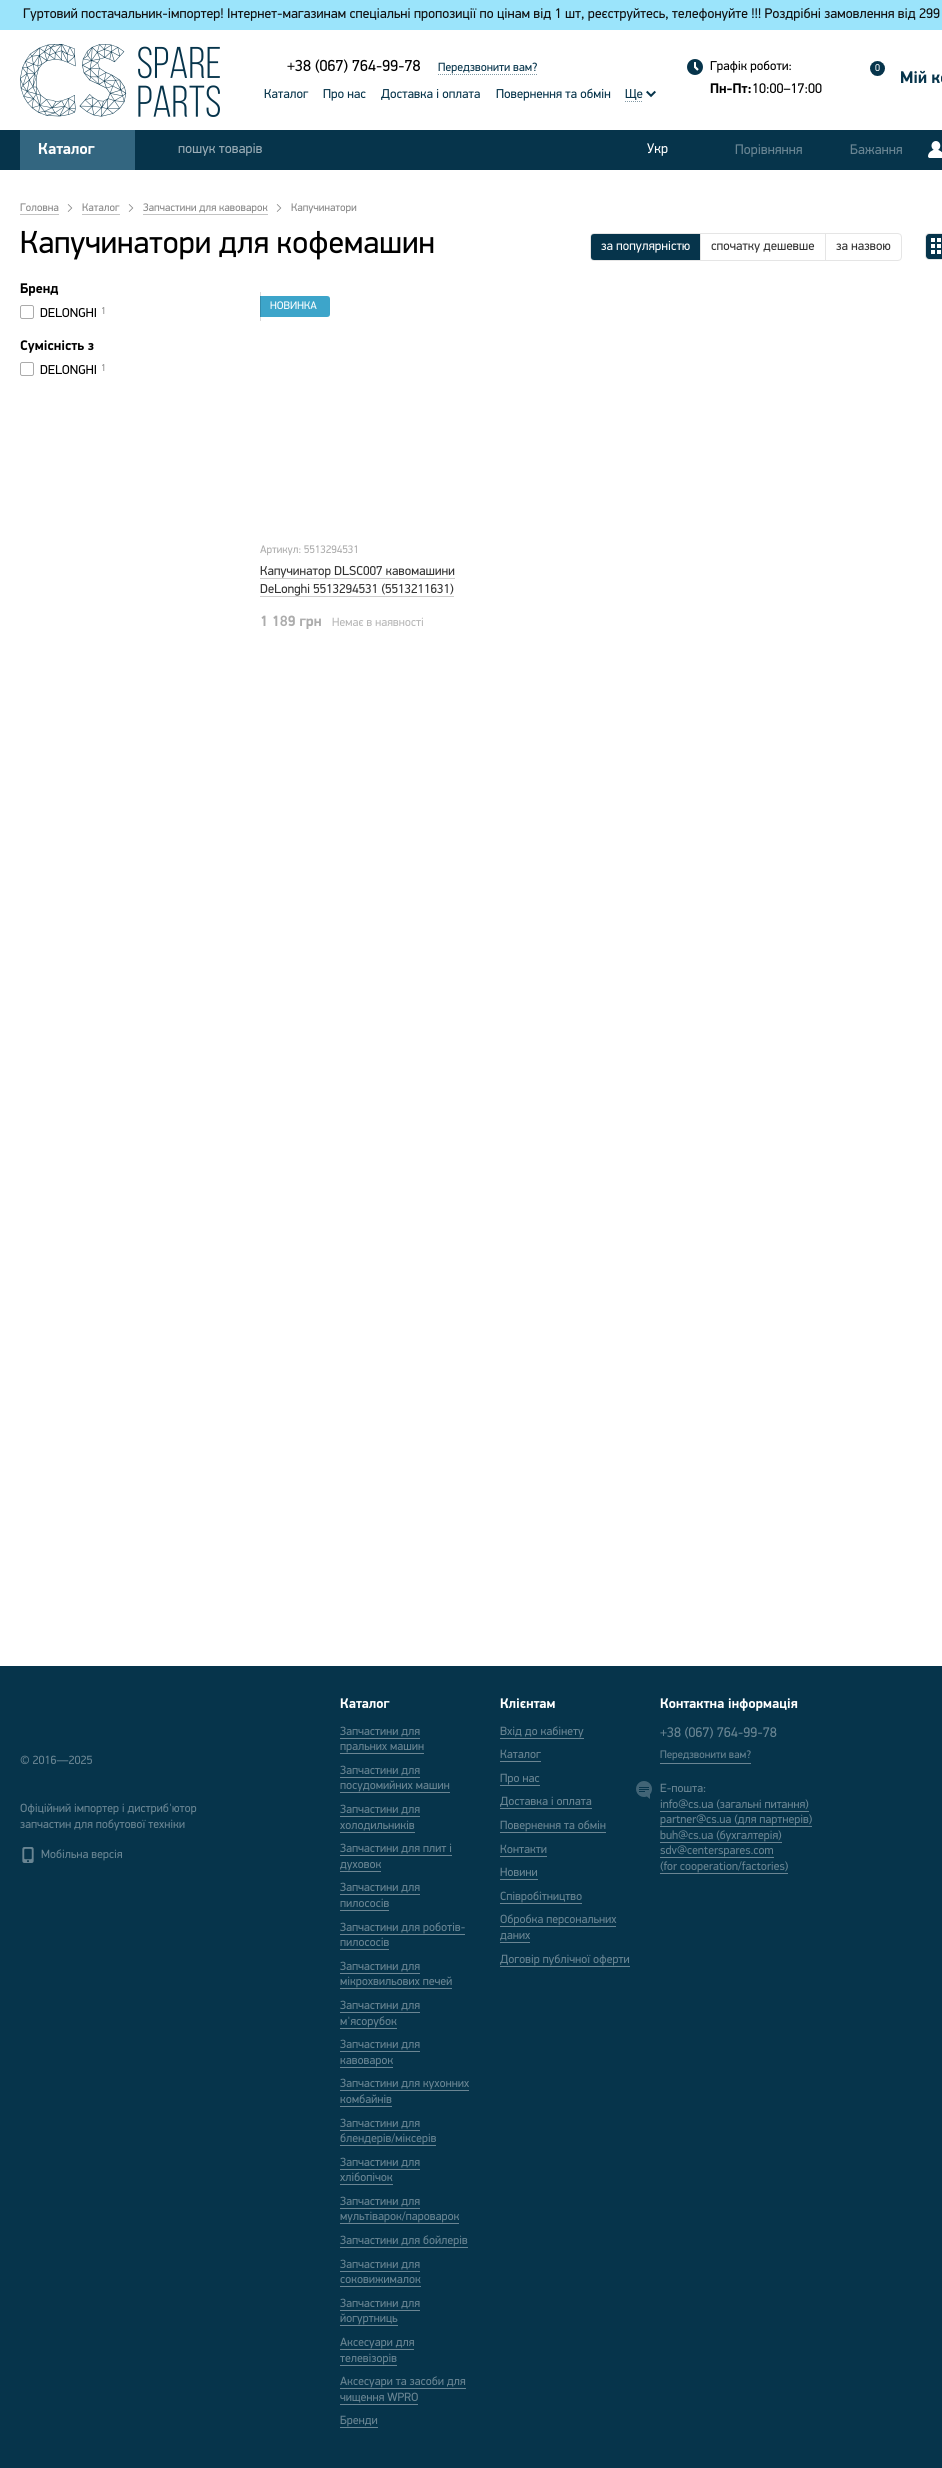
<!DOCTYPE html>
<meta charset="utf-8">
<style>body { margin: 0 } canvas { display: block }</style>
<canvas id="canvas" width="942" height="2468"></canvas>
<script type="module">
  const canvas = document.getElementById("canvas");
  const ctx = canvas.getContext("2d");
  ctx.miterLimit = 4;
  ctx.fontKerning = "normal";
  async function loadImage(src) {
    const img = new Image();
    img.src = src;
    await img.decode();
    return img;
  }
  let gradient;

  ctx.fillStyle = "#ffffff";
  ctx.fillRect(0, 0, 942, 2468);
  ctx.fillStyle = "#d9d9d9";
  ctx.fillRect(260, 292, 1, 29);
  ctx.fillStyle = "#9be4fb";
  ctx.fillRect(0, 0, 942, 30);
  ctx.drawImage(await loadImage("img1.png"), 23, 7, 917, 14);
  ctx.drawImage(await loadImage("img2.png"), 20, 44, 200, 73);
  ctx.drawImage(await loadImage("img3.png"), 287, 59, 133, 14);
  ctx.drawImage(await loadImage("img4.png"), 438, 62, 99, 12);
  ctx.beginPath();
  ctx.moveTo(438, 74.5);
  ctx.lineTo(538, 74.5);
  ctx.strokeStyle = "#839aa5";
  ctx.setLineDash([1, 1]);
  ctx.stroke();
  ctx.drawImage(await loadImage("img5.png"), 264, 89, 45, 10);
  ctx.drawImage(await loadImage("img6.png"), 323, 89, 43, 12);
  ctx.drawImage(await loadImage("img7.png"), 381, 89, 99, 11);
  ctx.drawImage(await loadImage("img8.png"), 496, 88, 115, 13);
  ctx.drawImage(await loadImage("img9.png"), 625, 89, 18, 11);
  ctx.drawImage(await loadImage("img10.png"), 646, 90, 10, 8);
  ctx.beginPath();
  ctx.moveTo(625, 101.5);
  ctx.lineTo(643, 101.5);
  ctx.stroke();
  ctx.drawImage(await loadImage("img11.png"), 687, 59, 16, 16);
  ctx.drawImage(await loadImage("img12.png"), 710, 60, 81, 13);
  ctx.drawImage(await loadImage("img13.png"), 710, 83, 41, 11);
  ctx.drawImage(await loadImage("img14.png"), 753, 83, 69, 11);
  ctx.fillStyle = "#06344b";
  ctx.beginPath();
  ctx.arc(877.5, 68.5, 7.5, 0, Math.PI * 2);
  ctx.fill();
  ctx.drawImage(await loadImage("img15.png"), 875, 64, 5, 7);
  ctx.drawImage(await loadImage("img16.png"), 901, 70, 41, 13);
  ctx.fillRect(0, 130, 942, 40);
  ctx.fillStyle = "#336680";
  ctx.fillRect(20, 130, 115, 40);
  ctx.drawImage(await loadImage("img17.png"), 38, 143, 57, 12);
  ctx.drawImage(await loadImage("img18.png"), 178, 143, 84, 13);
  ctx.drawImage(await loadImage("img19.png"), 647, 143, 21, 13);
  ctx.drawImage(await loadImage("img20.png"), 735, 144, 67, 13);
  ctx.drawImage(await loadImage("img21.png"), 850, 144, 52, 10);
  ctx.drawImage(await loadImage("img22.png"), 928, 141, 14, 17);
  ctx.drawImage(await loadImage("img23.png"), 20, 203, 39, 8);
  ctx.drawImage(await loadImage("img24.png"), 67, 204, 6, 8);
  ctx.fillStyle = "#c3c3c3";
  ctx.fillRect(20, 214, 39, 1);
  ctx.drawImage(await loadImage("img25.png"), 82, 203, 38, 8);
  ctx.drawImage(await loadImage("img24.png"), 128, 204, 6, 8);
  ctx.fillRect(82, 214, 38, 1);
  ctx.drawImage(await loadImage("img26.png"), 143, 203, 125, 11);
  ctx.drawImage(await loadImage("img24.png"), 276, 204, 6, 8);
  ctx.fillRect(143, 214, 125, 1);
  ctx.drawImage(await loadImage("img27.png"), 291, 203, 66, 11);
  ctx.drawImage(await loadImage("img28.png"), 21, 230, 413, 30);
  ctx.drawImage(await loadImage("img29.png"), 20, 283, 39, 13);
  ctx.beginPath();
  ctx.roundRect(20.5, 305.5, 13, 13, 1.5);
  ctx.strokeStyle = "#ababab";
  ctx.setLineDash([]);
  ctx.stroke();
  ctx.drawImage(await loadImage("img30.png"), 40, 308, 56, 10);
  ctx.drawImage(await loadImage("img31.png"), 102, 307, 3, 7);
  ctx.drawImage(await loadImage("img32.png"), 20, 340, 74, 13);
  ctx.beginPath();
  ctx.roundRect(20.5, 362.5, 13, 13, 1.5);
  ctx.stroke();
  ctx.drawImage(await loadImage("img30.png"), 40, 365, 56, 10);
  ctx.drawImage(await loadImage("img31.png"), 102, 364, 3, 7);
  ctx.beginPath();
  ctx.roundRect(590.5, 233.5, 311, 27, 3.5);
  ctx.strokeStyle = "#e5e5e5";
  ctx.stroke();
  ctx.fillStyle = "#06344b";
  ctx.beginPath();
  ctx.roundRect(591, 234, 110, 26, [3, 0, 0, 3]);
  ctx.fill();
  ctx.fillStyle = "#e5e5e5";
  ctx.fillRect(700, 234, 1, 26);
  ctx.drawImage(await loadImage("img33.png"), 601, 241, 89, 12);
  ctx.fillRect(825, 234, 1, 26);
  ctx.drawImage(await loadImage("img34.png"), 711, 243, 104, 10);
  ctx.drawImage(await loadImage("img35.png"), 836, 243, 55, 8);
  ctx.beginPath();
  ctx.roundRect(925.5, 233.5, 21, 26, 3.5);
  ctx.stroke();
  ctx.fillStyle = "#06344b";
  ctx.beginPath();
  ctx.moveTo(929, 234);
  ctx.lineTo(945, 234);
  ctx.lineTo(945, 259);
  ctx.lineTo(929, 259);
  ctx.bezierCurveTo(927.5, 259, 926, 257.5, 926, 256);
  ctx.lineTo(926, 237);
  ctx.bezierCurveTo(926, 235.5, 927.5, 234, 929, 234);
  ctx.closePath();
  ctx.fill();
  ctx.drawImage(await loadImage("img36.png"), 931, 238, 10, 16);
  ctx.fillStyle = "#3da5ca";
  ctx.beginPath();
  ctx.roundRect(260, 296, 70, 21, [0, 3, 3, 0]);
  ctx.fill();
  ctx.fillStyle = "#348cac";
  ctx.fillRect(260, 296, 1, 21);
  ctx.drawImage(await loadImage("img37.png"), 270, 301, 47, 9);
  ctx.drawImage(await loadImage("img38.png"), 260, 545, 97, 11);
  ctx.drawImage(await loadImage("img39.png"), 260, 565, 195, 13);
  ctx.fillStyle = "#cccccc";
  ctx.fillRect(260, 578, 195, 1);
  ctx.drawImage(await loadImage("img40.png"), 260, 583, 194, 13);
  ctx.fillRect(260, 596, 194, 1);
  ctx.drawImage(await loadImage("img41.png"), 261, 615, 60, 14);
  gradient = ctx.createLinearGradient(320, 623, 332, 623);
  gradient.addColorStop(0, "rgba(255, 255, 255, 0)");
  gradient.addColorStop(1, "#ffffff");
  ctx.fillStyle = gradient;
  ctx.fillRect(320, 619, 1, 7);
  ctx.drawImage(await loadImage("img42.png"), 332, 617, 91, 9);
  ctx.fillStyle = "#06344b";
  ctx.fillRect(0, 1666, 942, 802);
  ctx.drawImage(await loadImage("img43.png"), 20, 1755, 72, 10);
  ctx.drawImage(await loadImage("img44.png"), 20, 1803, 177, 12);
  ctx.drawImage(await loadImage("img45.png"), 20, 1819, 165, 12);
  ctx.drawImage(await loadImage("img46.png"), 22, 1847, 12, 16);
  ctx.drawImage(await loadImage("img47.png"), 41, 1849, 81, 12);
  ctx.drawImage(await loadImage("img48.png"), 340, 1698, 50, 11);
  ctx.drawImage(await loadImage("img49.png"), 340, 1726, 80, 11);
  ctx.fillStyle = "#6a8593";
  ctx.fillRect(340, 1738, 80, 1);
  ctx.drawImage(await loadImage("img50.png"), 340, 1744, 84, 9);
  ctx.fillRect(340, 1753, 84, 1);
  ctx.drawImage(await loadImage("img49.png"), 340, 1765, 80, 11);
  ctx.fillRect(340, 1777, 80, 1);
  ctx.drawImage(await loadImage("img51.png"), 340, 1780, 110, 12);
  ctx.fillRect(340, 1792, 110, 1);
  ctx.drawImage(await loadImage("img49.png"), 340, 1804, 80, 11);
  ctx.fillRect(340, 1816, 80, 1);
  ctx.drawImage(await loadImage("img52.png"), 340, 1820, 75, 11);
  ctx.fillRect(340, 1832, 75, 1);
  ctx.drawImage(await loadImage("img53.png"), 340, 1843, 112, 11);
  ctx.fillRect(340, 1855, 112, 1);
  ctx.drawImage(await loadImage("img54.png"), 340, 1862, 41, 9);
  ctx.fillRect(340, 1871, 41, 1);
  ctx.drawImage(await loadImage("img49.png"), 340, 1882, 80, 11);
  ctx.fillRect(340, 1894, 80, 1);
  ctx.drawImage(await loadImage("img55.png"), 340, 1898, 49, 9);
  ctx.fillRect(340, 1910, 49, 1);
  ctx.drawImage(await loadImage("img56.png"), 340, 1922, 125, 12);
  ctx.fillRect(340, 1934, 125, 1);
  ctx.drawImage(await loadImage("img55.png"), 340, 1937, 49, 9);
  ctx.fillRect(340, 1949, 49, 1);
  ctx.drawImage(await loadImage("img49.png"), 340, 1961, 80, 11);
  ctx.fillRect(340, 1973, 80, 1);
  ctx.drawImage(await loadImage("img57.png"), 340, 1976, 112, 12);
  ctx.fillRect(340, 1988, 112, 1);
  ctx.drawImage(await loadImage("img49.png"), 340, 2000, 80, 11);
  ctx.fillRect(340, 2012, 80, 1);
  ctx.drawImage(await loadImage("img58.png"), 340, 2016, 57, 12);
  ctx.fillRect(340, 2028, 57, 1);
  ctx.drawImage(await loadImage("img49.png"), 340, 2039, 80, 11);
  ctx.fillRect(340, 2051, 80, 1);
  ctx.drawImage(await loadImage("img59.png"), 340, 2058, 53, 9);
  ctx.fillRect(340, 2067, 53, 1);
  ctx.drawImage(await loadImage("img60.png"), 340, 2078, 129, 12);
  ctx.fillRect(340, 2090, 129, 1);
  ctx.drawImage(await loadImage("img61.png"), 340, 2094, 52, 9);
  ctx.fillRect(340, 2106, 52, 1);
  ctx.drawImage(await loadImage("img49.png"), 340, 2118, 80, 11);
  ctx.fillRect(340, 2130, 80, 1);
  ctx.drawImage(await loadImage("img62.png"), 340, 2133, 96, 12);
  ctx.fillRect(340, 2145, 96, 1);
  ctx.drawImage(await loadImage("img49.png"), 340, 2157, 80, 11);
  ctx.fillRect(340, 2169, 80, 1);
  ctx.drawImage(await loadImage("img63.png"), 340, 2172, 53, 9);
  ctx.fillRect(340, 2184, 53, 1);
  ctx.drawImage(await loadImage("img49.png"), 340, 2196, 80, 11);
  ctx.fillRect(340, 2208, 80, 1);
  ctx.drawImage(await loadImage("img64.png"), 340, 2211, 119, 12);
  ctx.fillRect(340, 2223, 119, 1);
  ctx.drawImage(await loadImage("img65.png"), 340, 2235, 128, 12);
  ctx.fillRect(340, 2247, 128, 1);
  ctx.drawImage(await loadImage("img49.png"), 340, 2259, 80, 11);
  ctx.fillRect(340, 2271, 80, 1);
  ctx.drawImage(await loadImage("img66.png"), 340, 2277, 81, 6);
  ctx.fillRect(340, 2286, 81, 1);
  ctx.drawImage(await loadImage("img49.png"), 340, 2298, 80, 11);
  ctx.fillRect(340, 2310, 80, 1);
  ctx.drawImage(await loadImage("img67.png"), 340, 2313, 58, 12);
  ctx.fillRect(340, 2325, 58, 1);
  ctx.drawImage(await loadImage("img68.png"), 340, 2337, 74, 12);
  ctx.fillRect(340, 2349, 74, 1);
  ctx.drawImage(await loadImage("img69.png"), 340, 2353, 57, 12);
  ctx.fillRect(340, 2365, 57, 1);
  ctx.drawImage(await loadImage("img70.png"), 340, 2376, 126, 12);
  ctx.fillRect(340, 2388, 126, 1);
  ctx.drawImage(await loadImage("img71.png"), 340, 2392, 78, 11);
  ctx.fillRect(340, 2404, 78, 1);
  ctx.drawImage(await loadImage("img72.png"), 340, 2415, 38, 12);
  ctx.fillRect(340, 2427, 38, 1);
  ctx.drawImage(await loadImage("img73.png"), 500, 1698, 55, 11);
  ctx.drawImage(await loadImage("img74.png"), 500, 1726, 84, 12);
  ctx.fillRect(500, 1738, 84, 1);
  ctx.drawImage(await loadImage("img75.png"), 500, 1749, 41, 9);
  ctx.fillRect(500, 1761, 41, 1);
  ctx.drawImage(await loadImage("img76.png"), 500, 1773, 40, 12);
  ctx.fillRect(500, 1785, 40, 1);
  ctx.drawImage(await loadImage("img77.png"), 500, 1796, 92, 11);
  ctx.fillRect(500, 1808, 92, 1);
  ctx.drawImage(await loadImage("img78.png"), 500, 1820, 106, 12);
  ctx.fillRect(500, 1832, 106, 1);
  ctx.drawImage(await loadImage("img79.png"), 500, 1844, 47, 9);
  ctx.fillRect(500, 1856, 47, 1);
  ctx.drawImage(await loadImage("img80.png"), 500, 1867, 37, 9);
  ctx.fillRect(500, 1879, 38, 1);
  ctx.drawImage(await loadImage("img81.png"), 500, 1891, 82, 12);
  ctx.fillRect(500, 1903, 82, 1);
  ctx.drawImage(await loadImage("img82.png"), 500, 1914, 117, 12);
  ctx.fillRect(500, 1926, 116, 1);
  ctx.drawImage(await loadImage("img83.png"), 500, 1933, 30, 8);
  ctx.fillRect(500, 1942, 30, 1);
  ctx.drawImage(await loadImage("img84.png"), 500, 1954, 129, 12);
  ctx.fillRect(500, 1966, 130, 1);
  ctx.drawImage(await loadImage("img85.png"), 660, 1698, 138, 13);
  ctx.drawImage(await loadImage("img86.png"), 660, 1726, 117, 13);
  ctx.fillRect(660, 1763, 91, 1);
  ctx.drawImage(await loadImage("img87.png"), 660, 1750, 91, 11);
  ctx.drawImage(await loadImage("img88.png"), 636, 1781, 16, 18);
  ctx.drawImage(await loadImage("img89.png"), 660, 1783, 46, 9);
  ctx.drawImage(await loadImage("img90.png"), 660, 1799, 149, 11);
  ctx.fillRect(660, 1811, 149, 1);
  ctx.drawImage(await loadImage("img91.png"), 660, 1814, 152, 12);
  ctx.fillRect(660, 1826, 152, 1);
  ctx.drawImage(await loadImage("img92.png"), 660, 1830, 122, 12);
  ctx.fillRect(660, 1842, 122, 1);
  ctx.drawImage(await loadImage("img93.png"), 660, 1845, 113, 12);
  ctx.fillRect(660, 1857, 114, 1);
  ctx.drawImage(await loadImage("img94.png"), 660, 1861, 128, 12);
  ctx.fillRect(660, 1873, 128, 1);
</script>
